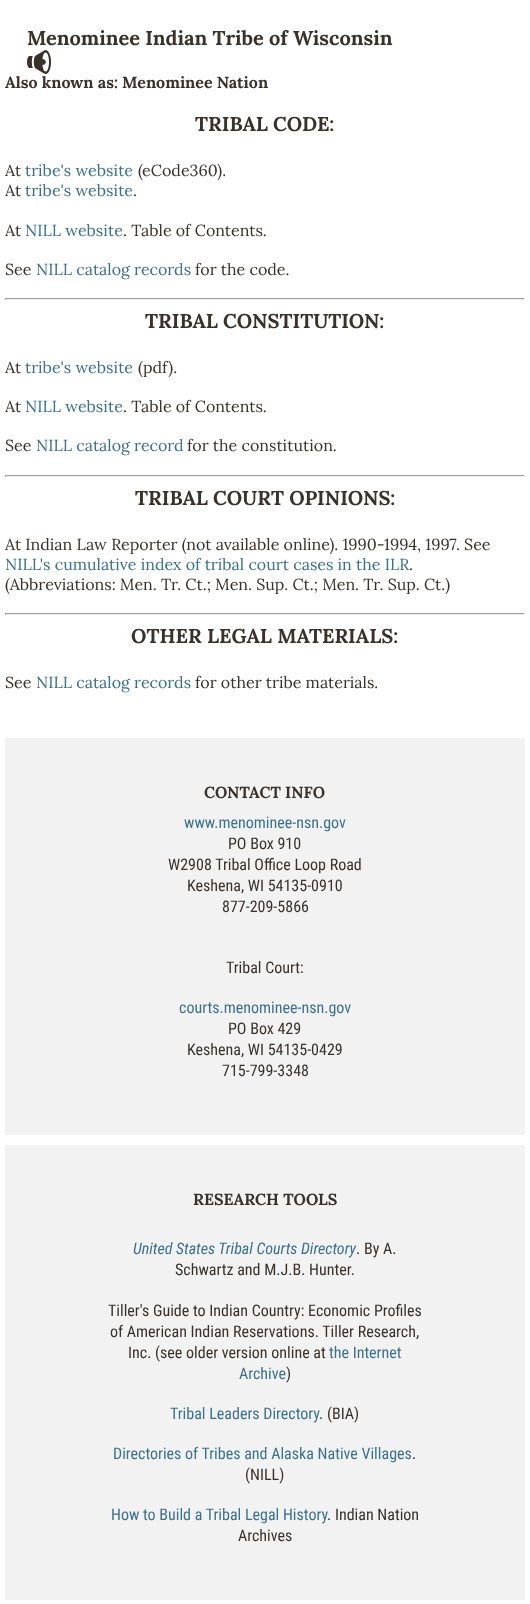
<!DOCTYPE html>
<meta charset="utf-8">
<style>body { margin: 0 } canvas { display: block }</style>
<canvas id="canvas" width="530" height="1604"></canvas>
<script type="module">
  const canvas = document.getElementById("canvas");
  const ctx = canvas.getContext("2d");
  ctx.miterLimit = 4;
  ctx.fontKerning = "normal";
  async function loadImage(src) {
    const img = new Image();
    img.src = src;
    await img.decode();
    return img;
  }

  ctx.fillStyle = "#ffffff";
  ctx.fillRect(0, 0, 530, 1604);
  ctx.font = "bold 20px Lora";
  ctx.fillStyle = "#3a312a";
  ctx.fillText("Menominee Indian Tribe of Wisconsin", 27, 45);
  ctx.drawImage(await loadImage("img1.png"), 27, 50, 24, 24);
  ctx.font = "bold 16px Lora";
  ctx.fillText("Also known as: Menominee Nation", 5, 88);
  ctx.font = "bold 20px Lora";
  ctx.fillText("TRIBAL CODE:", 195, 131);
  ctx.font = "16px Lora";
  ctx.fillText("At", 5, 176);
  ctx.fillStyle = "#3b718d";
  ctx.fillText("tribe's website", 25, 176);
  ctx.fillStyle = "#3a312a";
  ctx.fillText("(eCode360).", 138, 176);
  ctx.fillText("At", 5, 196);
  ctx.fillStyle = "#3b718d";
  ctx.fillText("tribe's website", 25, 196);
  ctx.fillStyle = "#3a312a";
  ctx.fillText(".", 133, 196);
  ctx.fillText("At", 5, 236);
  ctx.fillStyle = "#3b718d";
  ctx.fillText("NILL website", 25, 236);
  ctx.fillStyle = "#3a312a";
  ctx.fillText(". Table of Contents.", 123, 236);
  ctx.fillText("See", 5, 275);
  ctx.fillStyle = "#3b718d";
  ctx.fillText("NILL catalog records", 36, 275);
  ctx.fillStyle = "#3a312a";
  ctx.fillText("for the code.", 195, 275);
  ctx.fillStyle = "#9f9f9f";
  ctx.fillRect(5, 298, 520, 1);
  ctx.fillStyle = "#eeeeee";
  ctx.fillRect(524, 298, 1, 2);
  ctx.fillRect(5, 299, 520, 1);
  ctx.fillStyle = "#9f9f9f";
  ctx.fillRect(5, 298, 1, 2);
  ctx.font = "bold 20px Lora";
  ctx.fillStyle = "#3a312a";
  ctx.fillText("TRIBAL CONSTITUTION:", 145, 328);
  ctx.font = "16px Lora";
  ctx.fillText("At", 5, 373);
  ctx.fillStyle = "#3b718d";
  ctx.fillText("tribe's website", 25, 373);
  ctx.fillStyle = "#3a312a";
  ctx.fillText("(pdf).", 138, 373);
  ctx.fillText("At", 5, 412);
  ctx.fillStyle = "#3b718d";
  ctx.fillText("NILL website", 25, 412);
  ctx.fillStyle = "#3a312a";
  ctx.fillText(". Table of Contents.", 123, 412);
  ctx.fillText("See", 5, 451);
  ctx.fillStyle = "#3b718d";
  ctx.fillText("NILL catalog record", 36, 451);
  ctx.fillStyle = "#3a312a";
  ctx.fillText("for the constitution.", 187, 451);
  ctx.fillStyle = "#9f9f9f";
  ctx.fillRect(5, 475, 520, 1);
  ctx.fillStyle = "#eeeeee";
  ctx.fillRect(524, 475, 1, 2);
  ctx.fillRect(5, 476, 520, 1);
  ctx.fillStyle = "#9f9f9f";
  ctx.fillRect(5, 475, 1, 2);
  ctx.font = "bold 20px Lora";
  ctx.fillStyle = "#3a312a";
  ctx.fillText("TRIBAL COURT OPINIONS:", 135, 505);
  ctx.font = "16px Lora";
  ctx.fillText("At Indian Law Reporter (not available online). 1990-1994, 1997. See", 5, 550);
  ctx.fillStyle = "#3b718d";
  ctx.fillText("NILL's cumulative index of tribal court cases in the ILR", 5, 570);
  ctx.fillStyle = "#3a312a";
  ctx.fillText(".", 409, 570);
  ctx.fillText("(Abbreviations: Men. Tr. Ct.; Men. Sup. Ct.; Men. Tr. Sup. Ct.)", 5, 590);
  ctx.fillStyle = "#9f9f9f";
  ctx.fillRect(5, 613, 520, 1);
  ctx.fillStyle = "#eeeeee";
  ctx.fillRect(524, 613, 1, 2);
  ctx.fillRect(5, 614, 520, 1);
  ctx.fillStyle = "#9f9f9f";
  ctx.fillRect(5, 613, 1, 2);
  ctx.font = "bold 20px Lora";
  ctx.fillStyle = "#3a312a";
  ctx.fillText("OTHER LEGAL MATERIALS:", 131, 643);
  ctx.font = "16px Lora";
  ctx.fillText("See", 5, 688);
  ctx.fillStyle = "#3b718d";
  ctx.fillText("NILL catalog records", 36, 688);
  ctx.fillStyle = "#3a312a";
  ctx.fillText("for other tribe materials.", 195, 688);
  ctx.fillStyle = "#f2f2f2";
  ctx.fillRect(5, 738, 520, 397);
  ctx.font = "bold 16px Lora";
  ctx.fillStyle = "#3a312a";
  ctx.fillText("CONTACT INFO", 204, 798);
  ctx.font = "16px Roboto Condensed";
  ctx.fillStyle = "#3b718d";
  ctx.fillText("www.menominee-nsn.gov", 184, 828);
  ctx.fillStyle = "#3a312a";
  ctx.fillText("PO Box 910", 228, 849);
  ctx.fillText("W2908 Tribal Office Loop Road", 168, 870);
  ctx.fillText("Keshena, WI 54135-0910", 187, 891);
  ctx.fillText("877-209-5866", 222, 912);
  ctx.fillText("Tribal Court:", 226, 973);
  ctx.fillStyle = "#3b718d";
  ctx.fillText("courts.menominee-nsn.gov", 179, 1013);
  ctx.fillStyle = "#3a312a";
  ctx.fillText("PO Box 429", 228, 1034);
  ctx.fillText("Keshena, WI 54135-0429", 187, 1055);
  ctx.fillText("715-799-3348", 222, 1076);
  ctx.fillStyle = "#f2f2f2";
  ctx.fillRect(5, 1145, 520, 455);
  ctx.font = "bold 16px Lora";
  ctx.fillStyle = "#3a312a";
  ctx.fillText("RESEARCH TOOLS", 193, 1205);
  ctx.font = "italic 16px Roboto Condensed";
  ctx.fillStyle = "#3b718d";
  ctx.fillText("United States Tribal Courts Directory", 133, 1254);
  ctx.font = "16px Roboto Condensed";
  ctx.fillStyle = "#3a312a";
  ctx.fillText(". By A.", 356, 1254);
  ctx.fillText("Schwartz and M.J.B. Hunter.", 175, 1275);
  ctx.fillText("Tiller's Guide to Indian Country: Economic Profiles", 108, 1316);
  ctx.fillText("of American Indian Reservations. Tiller Research,", 110, 1337);
  ctx.fillText("Inc. (see older version online at", 128, 1358);
  ctx.fillStyle = "#3b718d";
  ctx.fillText("the Internet", 329, 1358);
  ctx.fillText("Archive", 239, 1379);
  ctx.fillStyle = "#3a312a";
  ctx.fillText(")", 286, 1379);
  ctx.fillStyle = "#3b718d";
  ctx.fillText("Tribal Leaders Directory", 170, 1419);
  ctx.fillStyle = "#3a312a";
  ctx.fillText(". (BIA)", 319, 1419);
  ctx.fillStyle = "#3b718d";
  ctx.fillText("Directories of Tribes and Alaska Native Villages", 113, 1459);
  ctx.fillStyle = "#3a312a";
  ctx.fillText(".", 412, 1459);
  ctx.fillText("(NILL)", 245, 1480);
  ctx.fillStyle = "#3b718d";
  ctx.fillText("How to Build a Tribal Legal History", 111, 1520);
  ctx.fillStyle = "#3a312a";
  ctx.fillText(". Indian Nation", 327, 1520);
  ctx.fillText("Archives", 238, 1541);
</script>
